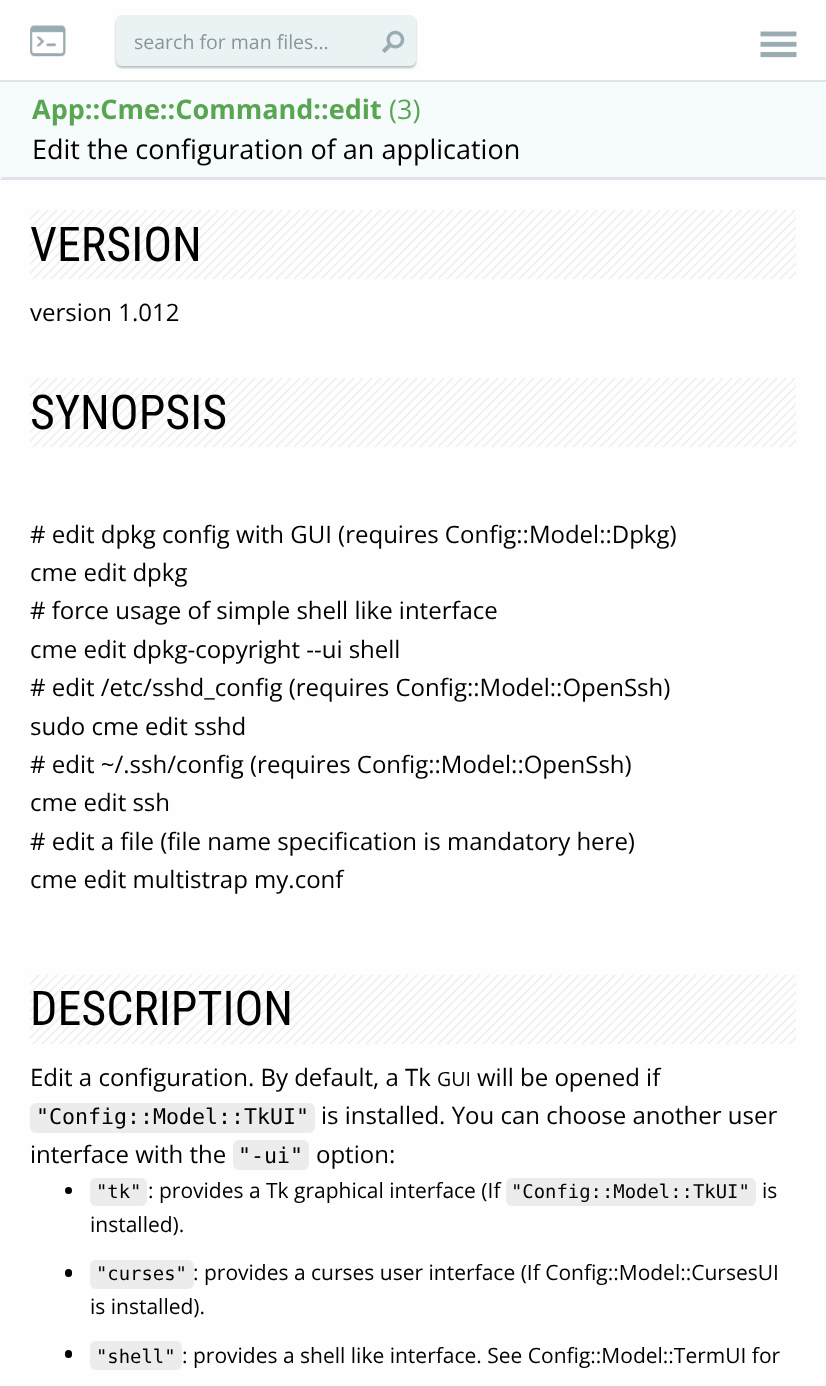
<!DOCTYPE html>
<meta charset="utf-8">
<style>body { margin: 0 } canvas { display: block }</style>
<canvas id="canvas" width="826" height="1386"></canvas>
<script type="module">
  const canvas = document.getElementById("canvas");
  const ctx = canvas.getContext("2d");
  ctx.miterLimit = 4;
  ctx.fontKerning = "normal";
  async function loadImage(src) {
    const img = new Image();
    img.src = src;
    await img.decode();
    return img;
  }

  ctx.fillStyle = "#fefefe";
  ctx.fillRect(0, 0, 826, 1386);
  ctx.fillStyle = "#dce5e7";
  ctx.fillRect(0, 80, 826, 2);
  ctx.drawImage(await loadImage("img1.png"), 30, 25, 36, 32);
  ctx.fillStyle = "rgba(6, 47, 55, 0.3)";
  ctx.filter = "blur(1px)";
  ctx.beginPath();
  ctx.roundRect(116, 17, 300, 51, 6);
  ctx.fill();
  ctx.filter = "none";
  ctx.fillStyle = "#eaf2f4";
  ctx.beginPath();
  ctx.roundRect(116, 15, 300, 51, 6);
  ctx.fill();
  ctx.font = "19.5px Open Sans";
  ctx.fillStyle = "#86969d";
  ctx.fillText("search for man files...", 134, 49);
  ctx.drawImage(await loadImage("img2.png"), 382, 30, 23, 23);
  ctx.drawImage(await loadImage("img3.png"), 760, 31, 37, 27);
  ctx.fillStyle = "#f6fbfc";
  ctx.fillRect(0, 82, 826, 98);
  ctx.fillStyle = "#dfe3e9";
  ctx.beginPath();
  ctx.moveTo(826, 180);
  ctx.lineTo(0, 180);
  ctx.lineTo(2, 177);
  ctx.lineTo(825, 177);
  ctx.closePath();
  ctx.fill();
  ctx.font = "bold 27px Open Sans";
  ctx.fillStyle = "#59a552";
  ctx.fillText("App::Cme::Command::edit", 32, 119);
  ctx.font = "27px Open Sans";
  ctx.fillText("(3)", 389, 119);
  ctx.fillStyle = "#000000";
  ctx.fillText("Edit the configuration of an application", 32, 159);
  ctx.drawImage(await loadImage("img4.png"), 30, 210, 766, 69);
  ctx.font = "48px Roboto Condensed";
  ctx.fillText("VERSION", 30, 261);
  ctx.font = "24px Open Sans";
  ctx.fillText("version 1.012", 30, 321);
  ctx.drawImage(await loadImage("img4.png"), 30, 378, 766, 69);
  ctx.font = "48px Roboto Condensed";
  ctx.fillText("SYNOPSIS", 30, 429);
  ctx.font = "24px Open Sans";
  ctx.fillText("# edit dpkg config with GUI (requires Config::Model::Dpkg)", 30, 543);
  ctx.fillText("cme edit dpkg", 30, 581);
  ctx.fillText("# force usage of simple shell like interface", 30, 619);
  ctx.fillText("cme edit dpkg-copyright --ui shell", 30, 658);
  ctx.fillText("# edit /etc/sshd_config (requires Config::Model::OpenSsh)", 30, 696);
  ctx.fillText("sudo cme edit sshd", 30, 735);
  ctx.fillText("# edit ~/.ssh/config (requires Config::Model::OpenSsh)", 30, 773);
  ctx.fillText("cme edit ssh", 30, 811);
  ctx.fillText("# edit a file (file name specification is mandatory here)", 30, 850);
  ctx.fillText("cme edit multistrap my.conf", 30, 888);
  ctx.drawImage(await loadImage("img4.png"), 30, 975, 766, 69);
  ctx.font = "48px Roboto Condensed";
  ctx.fillText("DESCRIPTION", 30, 1025);
  ctx.font = "24px Open Sans";
  ctx.fillText("Edit a configuration. By default, a Tk", 30, 1086);
  ctx.font = "19.5px Open Sans";
  ctx.fillText("GUI", 437, 1086);
  ctx.font = "24px Open Sans";
  ctx.fillText("will be opened if", 477, 1086);
  ctx.fillStyle = "#ececec";
  ctx.beginPath();
  ctx.roundRect(30, 1103, 285, 30, 6);
  ctx.fill();
  ctx.font = "21.6px DejaVu Sans Mono";
  ctx.fillStyle = "#000000";
  ctx.fillText("\"Config::Model::TkUI\"", 36, 1124);
  ctx.font = "24px Open Sans";
  ctx.fillText("is installed. You can choose another user", 321, 1124);
  ctx.fillText("interface with the", 30, 1163);
  ctx.fillStyle = "#ececec";
  ctx.beginPath();
  ctx.roundRect(233, 1140, 76, 30, 6);
  ctx.fill();
  ctx.font = "21.6px DejaVu Sans Mono";
  ctx.fillStyle = "#000000";
  ctx.fillText("\"-ui\"", 238, 1163);
  ctx.font = "24px Open Sans";
  ctx.fillText("option:", 316, 1163);
  ctx.beginPath();
  ctx.arc(68.5, 1190.5, 3.5, 0, Math.PI * 2);
  ctx.fill();
  ctx.fillStyle = "#ececec";
  ctx.beginPath();
  ctx.roundRect(90, 1178, 57, 28, 6);
  ctx.fill();
  ctx.font = "18.9px DejaVu Sans Mono";
  ctx.fillStyle = "#000000";
  ctx.fillText("\"tk\"", 96, 1198);
  ctx.font = "21px Open Sans";
  ctx.fillText(": provides a Tk graphical interface (If", 148, 1198);
  ctx.fillStyle = "#ececec";
  ctx.beginPath();
  ctx.roundRect(506, 1178, 250, 28, 6);
  ctx.fill();
  ctx.font = "18.9px DejaVu Sans Mono";
  ctx.fillStyle = "#000000";
  ctx.fillText("\"Config::Model::TkUI\"", 511, 1198);
  ctx.font = "21px Open Sans";
  ctx.fillText("is", 762, 1198);
  ctx.fillText("installed).", 90, 1232);
  ctx.beginPath();
  ctx.roundRect(65, 1269, 7, 8, 3.5);
  ctx.fill();
  ctx.fillStyle = "#ececec";
  ctx.beginPath();
  ctx.roundRect(90, 1260, 104, 29, 6);
  ctx.fill();
  ctx.font = "18.9px DejaVu Sans Mono";
  ctx.fillStyle = "#000000";
  ctx.fillText("\"curses\"", 96, 1280);
  ctx.font = "21px Open Sans";
  ctx.fillText(": provides a curses user interface (If Config::Model::CursesUI", 193, 1280);
  ctx.fillText("is installed).", 90, 1314);
  ctx.beginPath();
  ctx.roundRect(65, 1350, 7, 8, 3.5);
  ctx.fill();
  ctx.fillStyle = "#ececec";
  ctx.beginPath();
  ctx.roundRect(90, 1341, 92, 29, 6);
  ctx.fill();
  ctx.font = "18.9px DejaVu Sans Mono";
  ctx.fillStyle = "#000000";
  ctx.fillText("\"shell\"", 96, 1363);
  ctx.font = "21px Open Sans";
  ctx.fillText(": provides a shell like interface. See Config::Model::TermUI for", 182, 1363);
</script>
